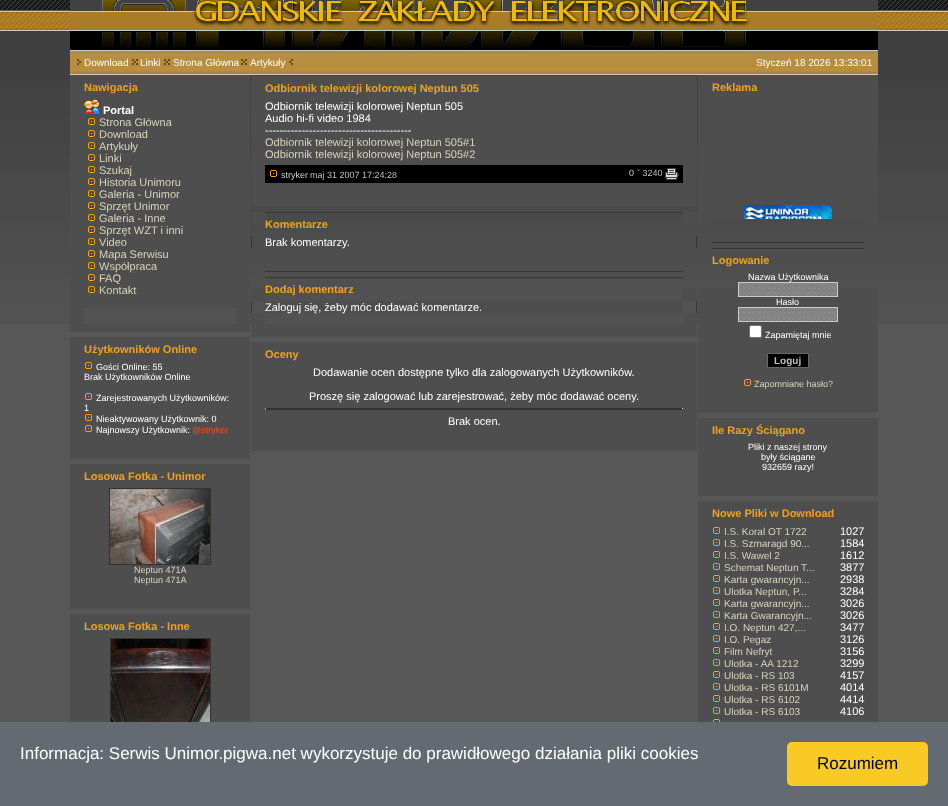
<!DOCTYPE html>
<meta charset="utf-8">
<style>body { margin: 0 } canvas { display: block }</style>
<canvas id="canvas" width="948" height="806"></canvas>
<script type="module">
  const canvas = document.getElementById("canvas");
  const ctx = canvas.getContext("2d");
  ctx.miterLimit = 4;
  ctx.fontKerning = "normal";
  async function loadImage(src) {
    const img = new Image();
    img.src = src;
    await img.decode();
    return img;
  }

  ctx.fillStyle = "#575757";
  ctx.fillRect(0, 0, 948, 806);
  ctx.drawImage(await loadImage("img1.png"), 0, 0, 948, 324);
  ctx.drawImage(await loadImage("img2.png"), 70, 0, 808, 50);
  ctx.drawImage(await loadImage("img3.png"), 70, 50, 584, 25);
  ctx.drawImage(await loadImage("img4.png"), 77, 59, 4, 6);
  ctx.font = "10px Liberation Sans";
  ctx.fillStyle = "#ffffff";
  ctx.fillText("Download", 84, 66);
  ctx.drawImage(await loadImage("img5.png"), 132, 59, 6, 6);
  ctx.fillText("Linki", 140, 66);
  ctx.drawImage(await loadImage("img5.png"), 164, 59, 6, 6);
  ctx.fillText("Strona Główna", 173, 66);
  ctx.drawImage(await loadImage("img5.png"), 241, 59, 6, 6);
  ctx.fillText("Artykuły", 250, 66);
  ctx.drawImage(await loadImage("img6.png"), 289, 59, 4, 6);
  ctx.drawImage(await loadImage("img7.png"), 654, 50, 22, 25);
  ctx.drawImage(await loadImage("img8.png"), 676, 50, 202, 25);
  ctx.fillText("Styczeń 18 2026 13:33:01", 756, 66);
  ctx.fillStyle = "#4e4e4e";
  ctx.fillRect(70, 75, 180, 24);
  ctx.font = "bold 11px Liberation Sans";
  ctx.fillStyle = "#eea21c";
  ctx.fillText("Nawigacja", 84, 91);
  ctx.fillStyle = "#4e4e4e";
  ctx.fillRect(70, 99, 180, 209);
  ctx.drawImage(await loadImage("img9.png"), 84, 99, 16, 15);
  ctx.fillStyle = "#ffffff";
  ctx.fillText("Portal", 103, 114);
  ctx.drawImage(await loadImage("img10.png"), 88, 118, 7, 7);
  ctx.font = "11px Liberation Sans";
  ctx.fillStyle = "#d8d3ba";
  ctx.fillText("Strona Główna", 99, 126);
  ctx.drawImage(await loadImage("img10.png"), 88, 130, 7, 7);
  ctx.fillText("Download", 99, 138);
  ctx.drawImage(await loadImage("img10.png"), 88, 142, 7, 7);
  ctx.fillText("Artykuły", 99, 150);
  ctx.drawImage(await loadImage("img10.png"), 88, 154, 7, 7);
  ctx.fillText("Linki", 99, 162);
  ctx.drawImage(await loadImage("img10.png"), 88, 166, 7, 7);
  ctx.fillText("Szukaj", 99, 174);
  ctx.drawImage(await loadImage("img10.png"), 88, 178, 7, 7);
  ctx.fillText("Historia Unimoru", 99, 186);
  ctx.drawImage(await loadImage("img10.png"), 88, 190, 7, 7);
  ctx.fillText("Galeria - Unimor", 99, 198);
  ctx.drawImage(await loadImage("img10.png"), 88, 202, 7, 7);
  ctx.fillText("Sprzęt Unimor", 99, 210);
  ctx.drawImage(await loadImage("img10.png"), 88, 214, 7, 7);
  ctx.fillText("Galeria - Inne", 99, 222);
  ctx.drawImage(await loadImage("img10.png"), 88, 226, 7, 7);
  ctx.fillText("Sprzęt WZT i inni", 99, 234);
  ctx.drawImage(await loadImage("img10.png"), 88, 238, 7, 7);
  ctx.fillText("Video", 99, 246);
  ctx.drawImage(await loadImage("img10.png"), 88, 250, 7, 7);
  ctx.fillText("Mapa Serwisu", 99, 258);
  ctx.drawImage(await loadImage("img10.png"), 88, 262, 7, 7);
  ctx.fillText("Współpraca", 99, 270);
  ctx.drawImage(await loadImage("img10.png"), 88, 274, 7, 7);
  ctx.fillText("FAQ", 99, 282);
  ctx.drawImage(await loadImage("img10.png"), 88, 286, 7, 7);
  ctx.fillText("Kontakt", 99, 294);
  ctx.fillStyle = "#4e4e4e";
  ctx.fillRect(70, 308, 14, 24);
  ctx.fillRect(84, 324, 152, 8);
  ctx.fillRect(236, 308, 14, 24);
  ctx.fillRect(70, 337, 180, 24);
  ctx.font = "bold 11px Liberation Sans";
  ctx.fillStyle = "#eea21c";
  ctx.fillText("Użytkowników Online", 84, 353);
  ctx.fillStyle = "#4e4e4e";
  ctx.fillRect(70, 361, 180, 74);
  ctx.drawImage(await loadImage("img10.png"), 85, 362, 7, 7);
  ctx.font = "9px Liberation Sans";
  ctx.fillStyle = "#ffffff";
  ctx.fillText("Gości Online: 55", 96, 370);
  ctx.fillText("Brak Użytkowników Online", 84, 380);
  ctx.drawImage(await loadImage("img10.png"), 85, 393, 7, 7);
  ctx.fillText("Zarejestrowanych Użytkowników:", 96, 401);
  ctx.fillText("1", 84, 411);
  ctx.drawImage(await loadImage("img10.png"), 85, 414, 7, 7);
  ctx.fillText("Nieaktywowany Użytkownik: 0", 96, 422);
  ctx.drawImage(await loadImage("img10.png"), 85, 425, 7, 7);
  ctx.fillText("Najnowszy Użytkownik:", 96, 433);
  ctx.fillStyle = "#f75013";
  ctx.fillText("@stryker", 192, 433);
  ctx.fillStyle = "#4e4e4e";
  ctx.fillRect(70, 435, 180, 24);
  ctx.fillRect(70, 464, 180, 24);
  ctx.font = "bold 11px Liberation Sans";
  ctx.fillStyle = "#eea21c";
  ctx.fillText("Losowa Fotka - Unimor", 84, 480);
  ctx.fillStyle = "#4e4e4e";
  ctx.fillRect(70, 488, 180, 97);
  ctx.strokeStyle = "#333333";
  ctx.strokeRect(109.5, 488.5, 101, 76);
  ctx.drawImage(await loadImage("img11.png"), 110, 489, 100, 75);
  ctx.font = "9px Liberation Sans";
  ctx.fillStyle = "#d8d3ba";
  ctx.fillText("Neptun 471A", 134, 573);
  ctx.fillText("Neptun 471A", 134, 583);
  ctx.fillStyle = "#4e4e4e";
  ctx.fillRect(70, 585, 180, 24);
  ctx.fillRect(70, 614, 180, 24);
  ctx.font = "bold 11px Liberation Sans";
  ctx.fillStyle = "#eea21c";
  ctx.fillText("Losowa Fotka - Inne", 84, 630);
  ctx.fillStyle = "#4e4e4e";
  ctx.fillRect(70, 638, 180, 84);
  ctx.strokeRect(110.5, 638.5, 100, 101);
  ctx.drawImage(await loadImage("img12.png"), 111, 639, 99, 83);
  ctx.fillRect(251, 76, 446, 24);
  ctx.fillStyle = "#eea21c";
  ctx.fillText("Odbiornik telewizji kolorowej Neptun 505", 265, 92);
  ctx.fillStyle = "#4e4e4e";
  ctx.fillRect(251, 100, 14, 107);
  ctx.fillRect(265, 100, 418, 65);
  ctx.font = "11px Liberation Sans";
  ctx.fillStyle = "#ffffff";
  ctx.fillText("Odbiornik telewizji kolorowej Neptun 505", 265, 110);
  ctx.fillText("Audio hi-fi video 1984", 265, 122);
  ctx.fillText("----------------------------------------", 265, 134);
  ctx.fillStyle = "#d8d3ba";
  ctx.fillText("Odbiornik telewizji kolorowej Neptun 505#1", 265, 146);
  ctx.fillText("Odbiornik telewizji kolorowej Neptun 505#2", 265, 158);
  ctx.fillStyle = "#000000";
  ctx.fillRect(265, 165, 418, 18);
  ctx.drawImage(await loadImage("img13.png"), 270, 170, 7, 7);
  ctx.font = "9px Liberation Sans";
  ctx.fillStyle = "#d8d3ba";
  ctx.fillText("stryker", 281, 178);
  ctx.fillStyle = "#c3bfb5";
  ctx.fillText("maj 31 2007 17:24:28", 310, 178);
  ctx.fillStyle = "#d8d3ba";
  ctx.fillText("0", 629, 176);
  ctx.fillStyle = "#c3bfb5";
  ctx.fillText("ˇ 3240", 637, 176);
  ctx.drawImage(await loadImage("img14.png"), 665, 168, 14, 12);
  ctx.fillStyle = "#4e4e4e";
  ctx.fillRect(683, 100, 14, 83);
  ctx.fillRect(265, 183, 432, 24);
  ctx.fillRect(251, 212, 14, 12);
  ctx.fillStyle = "#363636";
  ctx.fillRect(265, 212, 418, 1);
  ctx.font = "bold 11px Liberation Sans";
  ctx.fillStyle = "#eea21c";
  ctx.fillText("Komentarze", 265, 228);
  ctx.fillStyle = "#4e4e4e";
  ctx.fillRect(683, 212, 14, 12);
  ctx.fillStyle = "#363636";
  ctx.fillRect(251, 236, 1, 12);
  ctx.font = "11px Liberation Sans";
  ctx.fillStyle = "#ffffff";
  ctx.fillText("Brak komentarzy.", 265, 246);
  ctx.fillStyle = "#363636";
  ctx.fillRect(696, 236, 1, 12);
  ctx.fillRect(265, 271, 418, 1);
  ctx.fillStyle = "#4e4e4e";
  ctx.fillRect(251, 288, 14, 13);
  ctx.fillStyle = "#363636";
  ctx.fillRect(265, 277, 418, 1);
  ctx.font = "bold 11px Liberation Sans";
  ctx.fillStyle = "#eea21c";
  ctx.fillText("Dodaj komentarz", 265, 293);
  ctx.fillStyle = "#4e4e4e";
  ctx.fillRect(683, 288, 14, 13);
  ctx.fillStyle = "#363636";
  ctx.fillRect(251, 301, 1, 12);
  ctx.fillStyle = "#4e4e4e";
  ctx.fillRect(265, 301, 418, 12);
  ctx.font = "11px Liberation Sans";
  ctx.fillStyle = "#ffffff";
  ctx.fillText("Zaloguj się, żeby móc dodawać komentarze.", 265, 311);
  ctx.fillStyle = "#363636";
  ctx.fillRect(696, 301, 1, 12);
  ctx.fillStyle = "#4e4e4e";
  ctx.fillRect(251, 313, 14, 24);
  ctx.fillRect(265, 324, 418, 13);
  ctx.fillRect(683, 313, 14, 24);
  ctx.fillRect(251, 342, 446, 24);
  ctx.font = "bold 11px Liberation Sans";
  ctx.fillStyle = "#eea21c";
  ctx.fillText("Oceny", 265, 358);
  ctx.fillStyle = "#4e4e4e";
  ctx.fillRect(251, 366, 446, 61);
  ctx.font = "11px Liberation Sans";
  ctx.fillStyle = "#ffffff";
  ctx.fillText("Dodawanie ocen dostępne tylko dla zalogowanych Użytkowników.", 313, 376);
  ctx.fillText("Proszę się zalogować lub zarejestrować, żeby móc dodawać oceny.", 309, 400);
  ctx.fillStyle = "#333333";
  ctx.fillRect(265, 408, 418, 1);
  ctx.fillStyle = "#eeeeee";
  ctx.fillRect(682, 408, 1, 2);
  ctx.fillStyle = "#333333";
  ctx.fillRect(265, 409, 418, 1);
  ctx.fillStyle = "#9f9f9f";
  ctx.fillRect(265, 408, 1, 2);
  ctx.fillStyle = "#ffffff";
  ctx.fillText("Brak ocen.", 448, 425);
  ctx.fillStyle = "#4e4e4e";
  ctx.fillRect(251, 427, 446, 24);
  ctx.fillRect(698, 75, 180, 24);
  ctx.font = "bold 11px Liberation Sans";
  ctx.fillStyle = "#eea21c";
  ctx.fillText("Reklama", 712, 91);
  ctx.fillStyle = "#4e4e4e";
  ctx.fillRect(698, 99, 180, 120);
  ctx.drawImage(await loadImage("img15.png"), 744, 205, 88, 14);
  ctx.fillRect(698, 219, 14, 5);
  ctx.fillRect(864, 219, 14, 5);
  ctx.fillStyle = "#363636";
  ctx.fillRect(712, 242, 152, 1);
  ctx.fillRect(712, 248, 152, 1);
  ctx.fillStyle = "#eea21c";
  ctx.fillText("Logowanie", 712, 264);
  ctx.font = "9px Liberation Sans";
  ctx.fillStyle = "#ffffff";
  ctx.fillText("Nazwa Użytkownika", 748, 280);
  ctx.fillStyle = "#4e4e4e";
  ctx.fillRect(698, 288, 180, 101);
  ctx.fillStyle = "#7d7d7d";
  ctx.fillRect(739, 283, 98, 13);
  ctx.drawImage(await loadImage("img16.png"), 739, 283, 98, 13);
  ctx.strokeStyle = "#cccccc";
  ctx.strokeRect(738.5, 282.5, 99, 14);
  ctx.fillStyle = "#ffffff";
  ctx.fillText("Hasło", 776, 305);
  ctx.fillStyle = "#7d7d7d";
  ctx.fillRect(739, 308, 98, 13);
  ctx.drawImage(await loadImage("img16.png"), 739, 308, 98, 13);
  ctx.strokeRect(738.5, 307.5, 99, 14);
  ctx.fillStyle = "#ffffff";
  ctx.beginPath();
  ctx.roundRect(749.5, 325.5, 12, 12, 1.5);
  ctx.fill();
  ctx.strokeStyle = "#767676";
  ctx.stroke();
  ctx.fillText("Zapamiętaj mnie", 765, 338);
  ctx.fillStyle = "#000000";
  ctx.beginPath();
  ctx.rect(767.5, 353.5, 41, 14);
  ctx.fill();
  ctx.strokeStyle = "#666666";
  ctx.stroke();
  ctx.font = "bold 10px Liberation Sans";
  ctx.fillStyle = "#c3bfb5";
  ctx.fillText("Loguj", 774, 364);
  ctx.drawImage(await loadImage("img10.png"), 744, 379, 7, 7);
  ctx.font = "9px Liberation Sans";
  ctx.fillStyle = "#d8d3ba";
  ctx.fillText("Zapomniane hasło?", 754, 387);
  ctx.fillStyle = "#4e4e4e";
  ctx.fillRect(698, 389, 180, 24);
  ctx.fillRect(698, 418, 180, 24);
  ctx.font = "bold 11px Liberation Sans";
  ctx.fillStyle = "#eea21c";
  ctx.fillText("Ile Razy Ściągano", 712, 434);
  ctx.fillStyle = "#4e4e4e";
  ctx.fillRect(698, 442, 180, 30);
  ctx.font = "9px Liberation Sans";
  ctx.fillStyle = "#ffffff";
  ctx.fillText("Pliki z naszej strony", 748, 450);
  ctx.fillText("były ściągane", 761, 460);
  ctx.fillText("932659 razy!", 762, 470);
  ctx.fillStyle = "#4e4e4e";
  ctx.fillRect(698, 472, 180, 24);
  ctx.fillRect(698, 501, 180, 24);
  ctx.font = "bold 11px Liberation Sans";
  ctx.fillStyle = "#eea21c";
  ctx.fillText("Nowe Pliki w Download", 712, 517);
  ctx.fillStyle = "#4e4e4e";
  ctx.fillRect(698, 525, 180, 197);
  ctx.drawImage(await loadImage("img10.png"), 713, 527, 7, 7);
  ctx.font = "10px Liberation Sans";
  ctx.fillStyle = "#d8d3ba";
  ctx.fillText("I.S. Koral OT 1722", 724, 535);
  ctx.font = "11px Liberation Sans";
  ctx.fillStyle = "#ffffff";
  ctx.fillText("1027", 840, 535);
  ctx.drawImage(await loadImage("img10.png"), 713, 539, 7, 7);
  ctx.font = "10px Liberation Sans";
  ctx.fillStyle = "#d8d3ba";
  ctx.fillText("I.S. Szmaragd 90...", 724, 547);
  ctx.font = "11px Liberation Sans";
  ctx.fillStyle = "#ffffff";
  ctx.fillText("1584", 840, 547);
  ctx.drawImage(await loadImage("img10.png"), 713, 551, 7, 7);
  ctx.font = "10px Liberation Sans";
  ctx.fillStyle = "#d8d3ba";
  ctx.fillText("I.S. Wawel 2", 724, 559);
  ctx.font = "11px Liberation Sans";
  ctx.fillStyle = "#ffffff";
  ctx.fillText("1612", 840, 559);
  ctx.drawImage(await loadImage("img10.png"), 713, 563, 7, 7);
  ctx.font = "10px Liberation Sans";
  ctx.fillStyle = "#d8d3ba";
  ctx.fillText("Schemat Neptun T...", 724, 571);
  ctx.font = "11px Liberation Sans";
  ctx.fillStyle = "#ffffff";
  ctx.fillText("3877", 840, 571);
  ctx.drawImage(await loadImage("img10.png"), 713, 575, 7, 7);
  ctx.font = "10px Liberation Sans";
  ctx.fillStyle = "#d8d3ba";
  ctx.fillText("Karta gwarancyjn...", 724, 583);
  ctx.font = "11px Liberation Sans";
  ctx.fillStyle = "#ffffff";
  ctx.fillText("2938", 840, 583);
  ctx.drawImage(await loadImage("img10.png"), 713, 587, 7, 7);
  ctx.font = "10px Liberation Sans";
  ctx.fillStyle = "#d8d3ba";
  ctx.fillText("Ulotka Neptun, P...", 724, 595);
  ctx.font = "11px Liberation Sans";
  ctx.fillStyle = "#ffffff";
  ctx.fillText("3284", 840, 595);
  ctx.drawImage(await loadImage("img10.png"), 713, 599, 7, 7);
  ctx.font = "10px Liberation Sans";
  ctx.fillStyle = "#d8d3ba";
  ctx.fillText("Karta gwarancyjn...", 724, 607);
  ctx.font = "11px Liberation Sans";
  ctx.fillStyle = "#ffffff";
  ctx.fillText("3026", 840, 607);
  ctx.drawImage(await loadImage("img10.png"), 713, 611, 7, 7);
  ctx.font = "10px Liberation Sans";
  ctx.fillStyle = "#d8d3ba";
  ctx.fillText("Karta Gwarancyjn...", 724, 619);
  ctx.font = "11px Liberation Sans";
  ctx.fillStyle = "#ffffff";
  ctx.fillText("3026", 840, 619);
  ctx.drawImage(await loadImage("img10.png"), 713, 623, 7, 7);
  ctx.font = "10px Liberation Sans";
  ctx.fillStyle = "#d8d3ba";
  ctx.fillText("I.O. Neptun 427,...", 724, 631);
  ctx.font = "11px Liberation Sans";
  ctx.fillStyle = "#ffffff";
  ctx.fillText("3477", 840, 631);
  ctx.drawImage(await loadImage("img10.png"), 713, 635, 7, 7);
  ctx.font = "10px Liberation Sans";
  ctx.fillStyle = "#d8d3ba";
  ctx.fillText("I.O. Pegaz", 724, 643);
  ctx.font = "11px Liberation Sans";
  ctx.fillStyle = "#ffffff";
  ctx.fillText("3126", 840, 643);
  ctx.drawImage(await loadImage("img10.png"), 713, 647, 7, 7);
  ctx.font = "10px Liberation Sans";
  ctx.fillStyle = "#d8d3ba";
  ctx.fillText("Film Nefryt", 724, 655);
  ctx.font = "11px Liberation Sans";
  ctx.fillStyle = "#ffffff";
  ctx.fillText("3156", 840, 655);
  ctx.drawImage(await loadImage("img10.png"), 713, 659, 7, 7);
  ctx.font = "10px Liberation Sans";
  ctx.fillStyle = "#d8d3ba";
  ctx.fillText("Ulotka - AA 1212", 724, 667);
  ctx.font = "11px Liberation Sans";
  ctx.fillStyle = "#ffffff";
  ctx.fillText("3299", 840, 667);
  ctx.drawImage(await loadImage("img10.png"), 713, 671, 7, 7);
  ctx.font = "10px Liberation Sans";
  ctx.fillStyle = "#d8d3ba";
  ctx.fillText("Ulotka - RS 103", 724, 679);
  ctx.font = "11px Liberation Sans";
  ctx.fillStyle = "#ffffff";
  ctx.fillText("4157", 840, 679);
  ctx.drawImage(await loadImage("img10.png"), 713, 683, 7, 7);
  ctx.font = "10px Liberation Sans";
  ctx.fillStyle = "#d8d3ba";
  ctx.fillText("Ulotka - RS 6101M", 724, 691);
  ctx.font = "11px Liberation Sans";
  ctx.fillStyle = "#ffffff";
  ctx.fillText("4014", 840, 691);
  ctx.drawImage(await loadImage("img10.png"), 713, 695, 7, 7);
  ctx.font = "10px Liberation Sans";
  ctx.fillStyle = "#d8d3ba";
  ctx.fillText("Ulotka - RS 6102", 724, 703);
  ctx.font = "11px Liberation Sans";
  ctx.fillStyle = "#ffffff";
  ctx.fillText("4414", 840, 703);
  ctx.drawImage(await loadImage("img10.png"), 713, 707, 7, 7);
  ctx.font = "10px Liberation Sans";
  ctx.fillStyle = "#d8d3ba";
  ctx.fillText("Ulotka - RS 6103", 724, 715);
  ctx.font = "11px Liberation Sans";
  ctx.fillStyle = "#ffffff";
  ctx.fillText("4106", 840, 715);
  ctx.drawImage(await loadImage("img17.png"), 713, 719, 7, 3);
  ctx.fillStyle = "#636a71";
  ctx.fillRect(0, 722, 948, 84);
  ctx.font = "17px Liberation Sans";
  ctx.fillStyle = "#ffffff";
  ctx.fillText("Informacja: Serwis Unimor.pigwa.net wykorzystuje do prawidłowego działania pliki cookies", 20, 759);
  ctx.fillStyle = "#f9ca24";
  ctx.beginPath();
  ctx.roundRect(787, 742, 141, 44, 5);
  ctx.fill();
  ctx.fillStyle = "#000000";
  ctx.fillText("Rozumiem", 817, 769);
</script>
